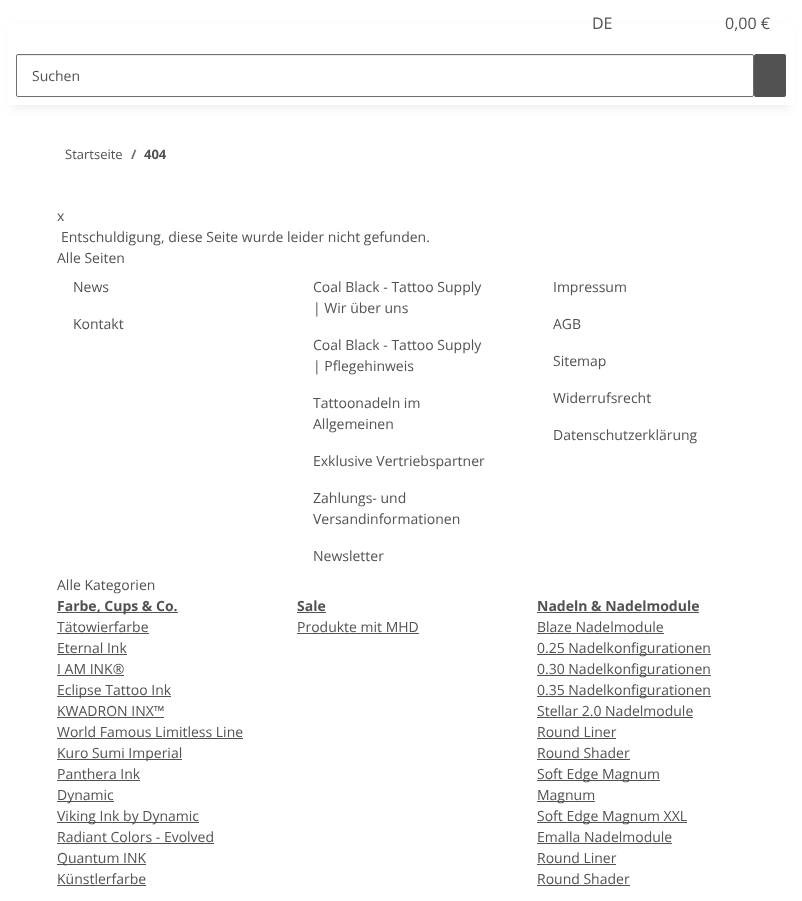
<!DOCTYPE html>
<meta charset="utf-8">
<style>body { margin: 0 } canvas { display: block }</style>
<canvas id="canvas" width="802" height="901"></canvas>
<script type="module">
  const canvas = document.getElementById("canvas");
  const ctx = canvas.getContext("2d");
  ctx.miterLimit = 4;
  ctx.fontKerning = "normal";

  ctx.fillStyle = "#ffffff";
  ctx.fillRect(0, 0, 802, 901);
  ctx.fillStyle = "rgba(0, 0, 0, 0.06)";
  ctx.filter = "blur(4.5px)";
  ctx.beginPath();
  ctx.rect(12, 28, 778, 81);
  ctx.fill();
  ctx.filter = "none";
  ctx.fillStyle = "#ffffff";
  ctx.fillRect(8, 24, 786, 81);
  ctx.font = "16px Open Sans";
  ctx.fillStyle = "#525252";
  ctx.fillText("DE", 592, 29);
  ctx.fillText("0,00 €", 725, 29);
  ctx.fillStyle = "#ececec";
  ctx.beginPath();
  ctx.moveTo(18, 55);
  ctx.lineTo(17, 56);
  ctx.lineTo(752, 56);
  ctx.lineTo(753, 57);
  ctx.bezierCurveTo(753, 56, 753, 55, 752, 55);
  ctx.closePath();
  ctx.fill();
  ctx.beginPath();
  ctx.roundRect(16.5, 54.5, 737, 42, 1.5);
  ctx.strokeStyle = "#707070";
  ctx.stroke();
  ctx.font = "14px Open Sans";
  ctx.fillStyle = "#525252";
  ctx.fillText("Suchen", 32, 81);
  ctx.beginPath();
  ctx.roundRect(754, 54, 32, 43, 2);
  ctx.fill();
  ctx.font = "13px Open Sans";
  ctx.fillText("Startseite", 65, 159);
  ctx.font = "bold 13px Open Sans";
  ctx.fillStyle = "#707070";
  ctx.fillText("/", 131, 159);
  ctx.fillStyle = "#525252";
  ctx.fillText("404", 144, 159);
  ctx.font = "14px Open Sans";
  ctx.fillText("x", 57, 221);
  ctx.fillText("Entschuldigung, diese Seite wurde leider nicht gefunden.", 61, 242);
  ctx.fillText("Alle Seiten", 57, 263);
  ctx.fillText("News", 73, 292);
  ctx.fillText("Kontakt", 73, 329);
  ctx.fillText("Coal Black - Tattoo Supply", 313, 292);
  ctx.fillText("| Wir über uns", 313, 313);
  ctx.fillText("Coal Black - Tattoo Supply", 313, 350);
  ctx.fillText("| Pflegehinweis", 313, 371);
  ctx.fillText("Tattoonadeln im", 313, 408);
  ctx.fillText("Allgemeinen", 313, 429);
  ctx.fillText("Exklusive Vertriebspartner", 313, 466);
  ctx.fillText("Zahlungs- und", 313, 503);
  ctx.fillText("Versandinformationen", 313, 524);
  ctx.fillText("Newsletter", 313, 561);
  ctx.fillText("Impressum", 553, 292);
  ctx.fillText("AGB", 553, 329);
  ctx.fillText("Sitemap", 553, 366);
  ctx.fillText("Widerrufsrecht", 553, 403);
  ctx.fillText("Datenschutzerklärung", 553, 440);
  ctx.fillText("Alle Kategorien", 57, 590);
  ctx.fillRect(57, 612, 121, 1);
  ctx.font = "bold 14px Open Sans";
  ctx.fillText("Farbe, Cups & Co.", 57, 611);
  ctx.font = "14px Open Sans";
  ctx.fillText("Tätowierfarbe", 57, 632);
  ctx.fillRect(57, 633, 92, 1);
  ctx.fillText("Eternal Ink", 57, 653);
  ctx.fillRect(57, 654, 70, 1);
  ctx.fillText("I AM INK®", 57, 674);
  ctx.fillRect(57, 675, 67, 1);
  ctx.fillRect(57, 696, 114, 1);
  ctx.fillText("Eclipse Tattoo Ink", 57, 695);
  ctx.fillText("KWADRON INX™", 57, 716);
  ctx.fillRect(57, 717, 107, 1);
  ctx.fillText("World Famous Limitless Line", 57, 737);
  ctx.fillRect(57, 738, 186, 1);
  ctx.fillRect(57, 759, 125, 1);
  ctx.fillText("Kuro Sumi Imperial", 57, 758);
  ctx.fillText("Panthera Ink", 57, 779);
  ctx.fillRect(57, 780, 83, 1);
  ctx.fillRect(57, 801, 57, 1);
  ctx.fillText("Dynamic", 57, 800);
  ctx.fillRect(57, 822, 142, 1);
  ctx.fillText("Viking Ink by Dynamic", 57, 821);
  ctx.fillText("Radiant Colors - Evolved", 57, 842);
  ctx.fillRect(57, 843, 157, 1);
  ctx.fillRect(57, 864, 89, 1);
  ctx.fillText("Quantum INK", 57, 863);
  ctx.fillText("Künstlerfarbe", 57, 884);
  ctx.fillRect(57, 885, 89, 1);
  ctx.font = "bold 14px Open Sans";
  ctx.fillText("Sale", 297, 611);
  ctx.fillRect(297, 612, 29, 1);
  ctx.font = "14px Open Sans";
  ctx.fillText("Produkte mit MHD", 297, 632);
  ctx.fillRect(297, 633, 122, 1);
  ctx.font = "bold 14px Open Sans";
  ctx.fillText("Nadeln & Nadelmodule", 537, 611);
  ctx.fillRect(537, 612, 162, 1);
  ctx.font = "14px Open Sans";
  ctx.fillText("Blaze Nadelmodule", 537, 632);
  ctx.fillRect(537, 633, 127, 1);
  ctx.fillRect(537, 654, 174, 1);
  ctx.fillText("0.25 Nadelkonfigurationen", 537, 653);
  ctx.fillRect(537, 675, 174, 1);
  ctx.fillText("0.30 Nadelkonfigurationen", 537, 674);
  ctx.fillRect(537, 696, 174, 1);
  ctx.fillText("0.35 Nadelkonfigurationen", 537, 695);
  ctx.fillText("Stellar 2.0 Nadelmodule", 537, 716);
  ctx.fillRect(537, 717, 156, 1);
  ctx.fillText("Round Liner", 537, 737);
  ctx.fillRect(537, 738, 79, 1);
  ctx.fillText("Round Shader", 537, 758);
  ctx.fillRect(537, 759, 93, 1);
  ctx.fillRect(537, 780, 123, 1);
  ctx.fillText("Soft Edge Magnum", 537, 779);
  ctx.fillRect(537, 801, 58, 1);
  ctx.fillText("Magnum", 537, 800);
  ctx.fillRect(537, 822, 150, 1);
  ctx.fillText("Soft Edge Magnum XXL", 537, 821);
  ctx.fillText("Emalla Nadelmodule", 537, 842);
  ctx.fillRect(537, 843, 135, 1);
  ctx.fillText("Round Liner", 537, 863);
  ctx.fillRect(537, 864, 79, 1);
  ctx.fillText("Round Shader", 537, 884);
  ctx.fillRect(537, 885, 93, 1);
</script>
